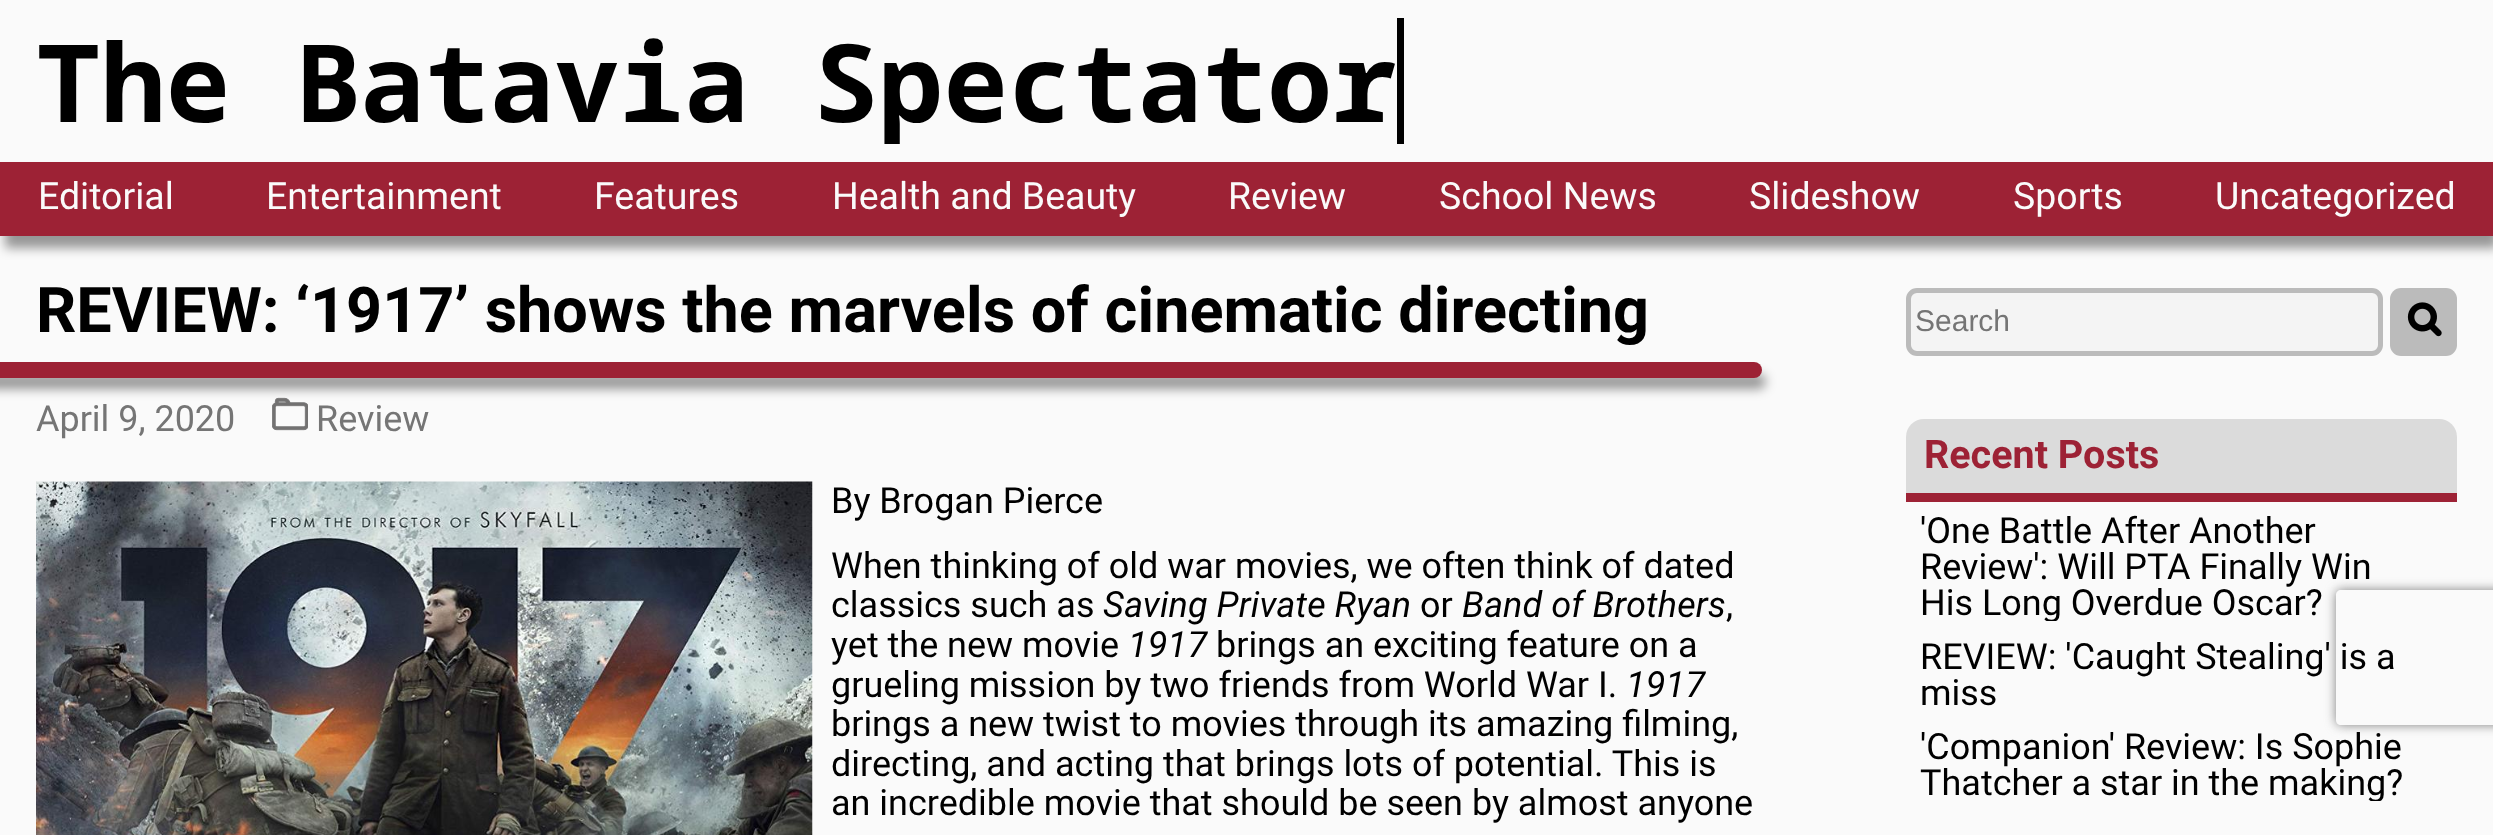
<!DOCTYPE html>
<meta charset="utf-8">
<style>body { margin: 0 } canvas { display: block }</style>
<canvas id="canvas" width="2493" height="835"></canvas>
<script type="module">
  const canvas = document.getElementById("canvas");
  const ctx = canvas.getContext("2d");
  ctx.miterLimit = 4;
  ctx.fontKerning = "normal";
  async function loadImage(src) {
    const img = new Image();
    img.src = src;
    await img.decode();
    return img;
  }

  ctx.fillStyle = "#fafafa";
  ctx.fillRect(0, 0, 2493, 835);
  ctx.fillStyle = "#000000";
  ctx.fillRect(1397, 18, 7, 126);
  ctx.save();
  ctx.beginPath();
  ctx.rect(36, 18, 1361, 126);
  ctx.clip();
  ctx.font = "bold 108px Noto Sans Mono";
  ctx.fillText("The Batavia Spectator", 36, 122);
  ctx.restore();
  ctx.fillStyle = "rgba(0, 0, 0, 0.4)";
  ctx.filter = "blur(5.5px)";
  ctx.beginPath();
  ctx.rect(5, 173, 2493, 75);
  ctx.fill();
  ctx.filter = "none";
  ctx.fillStyle = "#9d2235";
  ctx.fillRect(0, 162, 2493, 74);
  ctx.font = "37.5px Roboto";
  ctx.fillStyle = "#fafafa";
  ctx.fillText("Editorial", 38, 209);
  ctx.fillText("Entertainment", 266, 209);
  ctx.fillText("Features", 594, 209);
  ctx.fillText("Health and Beauty", 832, 209);
  ctx.fillText("Review", 1228, 209);
  ctx.fillText("School News", 1439, 209);
  ctx.fillText("Slideshow", 1749, 209);
  ctx.fillText("Sports", 2013, 209);
  ctx.fillText("Uncategorized", 2215, 209);
  ctx.font = "bold 63px Roboto";
  ctx.fillStyle = "#000000";
  ctx.fillText("REVIEW: ‘1917’ shows the marvels of cinematic directing", 36, 332);
  ctx.fillStyle = "rgba(0, 0, 0, 0.4)";
  ctx.filter = "blur(5.5px)";
  ctx.beginPath();
  ctx.roundRect(-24, 374, 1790, 15, 7.5);
  ctx.fill();
  ctx.filter = "none";
  ctx.fillStyle = "#9d2235";
  ctx.beginPath();
  ctx.roundRect(-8, 362, 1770, 16, 8);
  ctx.fill();
  ctx.font = "36px Roboto";
  ctx.fillStyle = "#757575";
  ctx.fillText("April 9, 2020", 36, 431);
  ctx.drawImage(await loadImage("img1.png"), 272, 397, 36, 34);
  ctx.fillText("Review", 316, 431);
  ctx.drawImage(await loadImage("img2.png"), 36, 481, 777, 354);
  ctx.fillStyle = "#000000";
  ctx.fillText("By Brogan Pierce", 831, 513);
  ctx.fillText("When thinking of old war movies, we often think of dated", 831, 578);
  ctx.fillText("classics such as", 831, 617);
  ctx.font = "italic 36px Roboto";
  ctx.fillText("Saving Private Ryan", 1103, 617);
  ctx.font = "36px Roboto";
  ctx.fillText("or", 1420, 617);
  ctx.font = "italic 36px Roboto";
  ctx.fillText("Band of Brothers", 1462, 617);
  ctx.font = "36px Roboto";
  ctx.fillText(",", 1726, 617);
  ctx.fillText("yet the new movie", 831, 657);
  ctx.font = "italic 36px Roboto";
  ctx.fillText("1917", 1128, 657);
  ctx.font = "36px Roboto";
  ctx.fillText("brings an exciting feature on a", 1216, 657);
  ctx.fillText("grueling mission by two friends from World War I.", 831, 697);
  ctx.font = "italic 36px Roboto";
  ctx.fillText("1917", 1626, 697);
  ctx.font = "36px Roboto";
  ctx.fillText("brings a new twist to movies through its amazing filming,", 831, 736);
  ctx.fillText("directing, and acting that brings lots of potential. This is", 831, 776);
  ctx.fillText("an incredible movie that should be seen by almost anyone", 831, 815);
  ctx.save();
  ctx.beginPath();
  ctx.moveTo(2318, 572);
  ctx.lineTo(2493, 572);
  ctx.lineTo(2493, 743);
  ctx.lineTo(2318, 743);
  ctx.closePath();
  ctx.moveTo(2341, 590);
  ctx.lineTo(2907, 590);
  ctx.bezierCurveTo(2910, 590, 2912, 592, 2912, 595);
  ctx.lineTo(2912, 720);
  ctx.bezierCurveTo(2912, 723, 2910, 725, 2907, 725);
  ctx.lineTo(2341, 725);
  ctx.bezierCurveTo(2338, 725, 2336, 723, 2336, 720);
  ctx.lineTo(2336, 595);
  ctx.bezierCurveTo(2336, 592, 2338, 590, 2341, 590);
  ctx.closePath();
  ctx.clip("evenodd");
  ctx.fillStyle = "#808080";
  ctx.filter = "blur(5.5px)";
  ctx.beginPath();
  ctx.roundRect(2336, 590, 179, 135, 5);
  ctx.fill();
  ctx.filter = "none";
  ctx.restore();
  ctx.fillStyle = "#f4f4f4";
  ctx.beginPath();
  ctx.roundRect(1908.5, 290.5, 472, 63, 8.5);
  ctx.fill();
  ctx.strokeStyle = "#bbbbbb";
  ctx.lineWidth = 5;
  ctx.stroke();
  ctx.font = "30px Liberation Sans";
  ctx.fillStyle = "#757575";
  ctx.fillText("Search", 1915, 331);
  ctx.fillStyle = "#bbbbbb";
  ctx.beginPath();
  ctx.roundRect(2390, 288, 67, 68, 11);
  ctx.fill();
  ctx.drawImage(await loadImage("img3.png"), 2407, 302, 35, 35);
  ctx.fillStyle = "#dbdbdb";
  ctx.beginPath();
  ctx.roundRect(1906, 419, 551, 83, [18, 18, 0, 0]);
  ctx.fill();
  ctx.fillStyle = "#9d2235";
  ctx.fillRect(1906, 493, 551, 9);
  ctx.font = "bold 39.5px Roboto";
  ctx.fillText("Recent Posts", 1924, 468);
  ctx.font = "36px Roboto";
  ctx.fillStyle = "#000000";
  ctx.fillText("'One Battle After Another", 1920, 543);
  ctx.fillText("Review': Will PTA Finally Win", 1920, 579);
  ctx.save();
  ctx.beginPath();
  ctx.rect(1919, 513, 509, 108);
  ctx.clip();
  ctx.fillText("His Long Overdue Oscar?", 1920, 615);
  ctx.restore();
  ctx.fillText("REVIEW: 'Caught Stealing' is a", 1920, 669);
  ctx.fillText("miss", 1920, 705);
  ctx.fillText("'Companion' Review: Is Sophie", 1920, 759);
  ctx.save();
  ctx.beginPath();
  ctx.rect(1919, 729, 509, 72);
  ctx.clip();
  ctx.fillText("Thatcher a star in the making?", 1920, 795);
  ctx.restore();
</script>
